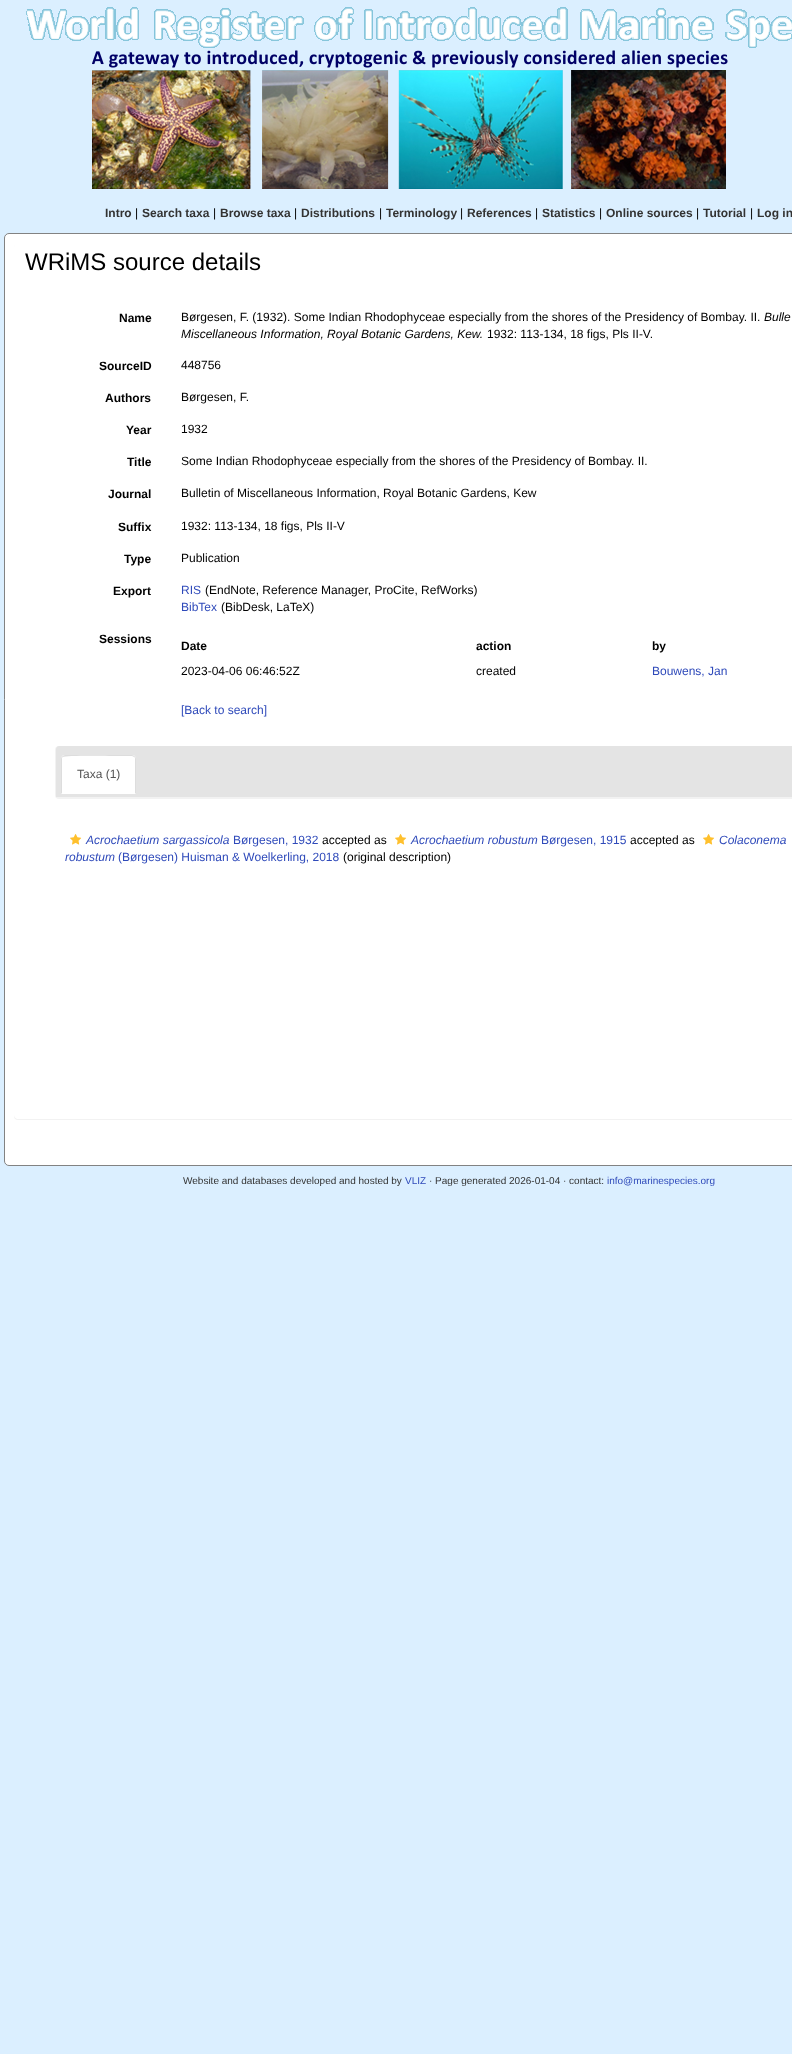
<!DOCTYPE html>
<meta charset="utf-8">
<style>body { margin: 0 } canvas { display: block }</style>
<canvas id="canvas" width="792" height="2054"></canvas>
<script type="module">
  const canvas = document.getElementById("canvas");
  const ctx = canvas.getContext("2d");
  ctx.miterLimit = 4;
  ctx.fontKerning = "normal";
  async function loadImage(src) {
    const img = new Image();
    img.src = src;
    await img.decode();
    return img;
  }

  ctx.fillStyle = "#dbefff";
  ctx.fillRect(0, 0, 792, 2054);
  ctx.drawImage(await loadImage("img1.png"), 26, 7, 766, 182);
  ctx.font = "bold 12px Liberation Sans";
  ctx.fillStyle = "#333333";
  ctx.fillText("Intro", 105, 217);
  ctx.font = "12px Liberation Sans";
  ctx.fillStyle = "#000000";
  ctx.fillText("|", 135, 217);
  ctx.font = "bold 12px Liberation Sans";
  ctx.fillStyle = "#333333";
  ctx.fillText("Search taxa", 142, 217);
  ctx.font = "12px Liberation Sans";
  ctx.fillStyle = "#000000";
  ctx.fillText("|", 213, 217);
  ctx.font = "bold 12px Liberation Sans";
  ctx.fillStyle = "#333333";
  ctx.fillText("Browse taxa", 220, 217);
  ctx.font = "12px Liberation Sans";
  ctx.fillStyle = "#000000";
  ctx.fillText("|", 294, 217);
  ctx.font = "bold 12px Liberation Sans";
  ctx.fillStyle = "#333333";
  ctx.fillText("Distributions", 301, 217);
  ctx.font = "12px Liberation Sans";
  ctx.fillStyle = "#000000";
  ctx.fillText("|", 379, 217);
  ctx.font = "bold 12px Liberation Sans";
  ctx.fillStyle = "#333333";
  ctx.fillText("Terminology", 386, 217);
  ctx.font = "12px Liberation Sans";
  ctx.fillStyle = "#000000";
  ctx.fillText("|", 460, 217);
  ctx.font = "bold 12px Liberation Sans";
  ctx.fillStyle = "#333333";
  ctx.fillText("References", 467, 217);
  ctx.font = "12px Liberation Sans";
  ctx.fillStyle = "#000000";
  ctx.fillText("|", 535, 217);
  ctx.font = "bold 12px Liberation Sans";
  ctx.fillStyle = "#333333";
  ctx.fillText("Statistics", 542, 217);
  ctx.font = "12px Liberation Sans";
  ctx.fillStyle = "#000000";
  ctx.fillText("|", 599, 217);
  ctx.font = "bold 12px Liberation Sans";
  ctx.fillStyle = "#333333";
  ctx.fillText("Online sources", 606, 217);
  ctx.font = "12px Liberation Sans";
  ctx.fillStyle = "#000000";
  ctx.fillText("|", 696, 217);
  ctx.font = "bold 12px Liberation Sans";
  ctx.fillStyle = "#333333";
  ctx.fillText("Tutorial", 703, 217);
  ctx.font = "12px Liberation Sans";
  ctx.fillStyle = "#000000";
  ctx.fillText("|", 750, 217);
  ctx.font = "bold 12px Liberation Sans";
  ctx.fillStyle = "#333333";
  ctx.fillText("Log in", 757, 217);
  ctx.fillStyle = "#ffffff";
  ctx.beginPath();
  ctx.roundRect(4.5, 233.5, 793, 932, 4.5);
  ctx.fill();
  ctx.strokeStyle = "#828282";
  ctx.stroke();
  ctx.save();
  ctx.beginPath();
  ctx.moveTo(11, 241);
  ctx.lineTo(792, 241);
  ctx.lineTo(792, 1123);
  ctx.lineTo(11, 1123);
  ctx.closePath();
  ctx.moveTo(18, 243);
  ctx.lineTo(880, 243);
  ctx.bezierCurveTo(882, 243, 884, 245, 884, 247);
  ctx.lineTo(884, 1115);
  ctx.bezierCurveTo(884, 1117, 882, 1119, 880, 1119);
  ctx.lineTo(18, 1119);
  ctx.bezierCurveTo(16, 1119, 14, 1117, 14, 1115);
  ctx.lineTo(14, 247);
  ctx.bezierCurveTo(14, 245, 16, 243, 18, 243);
  ctx.closePath();
  ctx.clip("evenodd");
  ctx.fillStyle = "rgba(0, 0, 0, 0.05)";
  ctx.filter = "blur(0.5px)";
  ctx.beginPath();
  ctx.roundRect(14, 244, 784, 876, 4);
  ctx.fill();
  ctx.filter = "none";
  ctx.restore();
  ctx.font = "24px Liberation Sans";
  ctx.fillStyle = "#000000";
  ctx.fillText("WRiMS source details", 25, 270);
  ctx.font = "bold 12px Liberation Sans";
  ctx.fillText("Name", 119, 322);
  ctx.font = "12px Liberation Sans";
  ctx.fillText("Børgesen, F. (1932). Some Indian Rhodophyceae especially from the shores of the Presidency of Bombay. II.", 181, 321);
  ctx.font = "italic 12px Liberation Sans";
  ctx.fillText("Bulle", 764, 321);
  ctx.fillText("Miscellaneous Information, Royal Botanic Gardens, Kew.", 181, 338);
  ctx.font = "12px Liberation Sans";
  ctx.fillText("1932: 113-134, 18 figs, Pls II-V.", 487, 338);
  ctx.font = "bold 12px Liberation Sans";
  ctx.fillText("SourceID", 99, 370);
  ctx.font = "12px Liberation Sans";
  ctx.fillText("448756", 181, 369);
  ctx.font = "bold 12px Liberation Sans";
  ctx.fillText("Authors", 105, 402);
  ctx.font = "12px Liberation Sans";
  ctx.fillText("Børgesen, F.", 181, 401);
  ctx.font = "bold 12px Liberation Sans";
  ctx.fillText("Year", 126, 434);
  ctx.font = "12px Liberation Sans";
  ctx.fillText("1932", 181, 433);
  ctx.font = "bold 12px Liberation Sans";
  ctx.fillText("Title", 127, 466);
  ctx.font = "12px Liberation Sans";
  ctx.fillText("Some Indian Rhodophyceae especially from the shores of the Presidency of Bombay. II.", 181, 465);
  ctx.font = "bold 12px Liberation Sans";
  ctx.fillText("Journal", 108, 498);
  ctx.font = "12px Liberation Sans";
  ctx.fillText("Bulletin of Miscellaneous Information, Royal Botanic Gardens, Kew", 181, 497);
  ctx.font = "bold 12px Liberation Sans";
  ctx.fillText("Suffix", 118, 531);
  ctx.font = "12px Liberation Sans";
  ctx.fillText("1932: 113-134, 18 figs, Pls II-V", 181, 530);
  ctx.font = "bold 12px Liberation Sans";
  ctx.fillText("Type", 124, 563);
  ctx.font = "12px Liberation Sans";
  ctx.fillText("Publication", 181, 562);
  ctx.font = "bold 12px Liberation Sans";
  ctx.fillText("Export", 113, 595);
  ctx.font = "12px Liberation Sans";
  ctx.fillStyle = "#2f4aba";
  ctx.fillText("RIS", 181, 594);
  ctx.fillStyle = "#000000";
  ctx.fillText("(EndNote, Reference Manager, ProCite, RefWorks)", 205, 594);
  ctx.fillStyle = "#2f4aba";
  ctx.fillText("BibTex", 181, 611);
  ctx.fillStyle = "#000000";
  ctx.fillText("(BibDesk, LaTeX)", 221, 611);
  ctx.font = "bold 12px Liberation Sans";
  ctx.fillText("Sessions", 99, 643);
  ctx.fillText("Date", 181, 650);
  ctx.fillText("action", 476, 650);
  ctx.fillText("by", 652, 650);
  ctx.font = "12px Liberation Sans";
  ctx.fillText("2023-04-06 06:46:52Z", 181, 675);
  ctx.fillText("created", 476, 675);
  ctx.fillStyle = "#2f4aba";
  ctx.fillText("Bouwens, Jan", 652, 675);
  ctx.fillText("[Back to search]", 181, 714);
  ctx.fillStyle = "rgba(0, 0, 0, 0.05)";
  ctx.filter = "blur(0.5px)";
  ctx.beginPath();
  ctx.roundRect(55, 746, 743, 53, 4);
  ctx.fill();
  ctx.filter = "none";
  ctx.fillStyle = "#e4e4e4";
  ctx.beginPath();
  ctx.moveTo(59, 746);
  ctx.lineTo(792, 746);
  ctx.bezierCurveTo(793.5, 746, 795, 747.5, 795, 749);
  ctx.lineTo(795, 797);
  ctx.lineTo(56, 797);
  ctx.lineTo(56, 749);
  ctx.bezierCurveTo(56, 747.5, 57.5, 746, 59, 746);
  ctx.closePath();
  ctx.fill();
  ctx.fillStyle = "#ffffff";
  ctx.beginPath();
  ctx.roundRect(61, 755, 75, 39, [4, 4, 0, 0]);
  ctx.fill();
  ctx.fillStyle = "#dddddd";
  ctx.beginPath();
  ctx.moveTo(65, 755);
  ctx.lineTo(62, 756);
  ctx.lineTo(63, 757);
  ctx.bezierCurveTo(65, 755, 114, 756, 121, 756);
  ctx.lineTo(132, 756);
  ctx.lineTo(134, 757);
  ctx.lineTo(135, 756);
  ctx.lineTo(132, 755);
  ctx.closePath();
  ctx.fill();
  ctx.beginPath();
  ctx.moveTo(136, 794);
  ctx.lineTo(136, 759);
  ctx.bezierCurveTo(136, 758, 135.5, 757, 135, 756);
  ctx.lineTo(134, 757);
  ctx.bezierCurveTo(135, 757, 135, 758, 135, 759);
  ctx.lineTo(135, 793);
  ctx.closePath();
  ctx.fill();
  ctx.beginPath();
  ctx.moveTo(61, 794);
  ctx.lineTo(62, 793);
  ctx.lineTo(62, 759);
  ctx.bezierCurveTo(62, 758, 62, 757, 63, 757);
  ctx.lineTo(62, 756);
  ctx.bezierCurveTo(61.5, 757, 61, 758, 61, 759);
  ctx.closePath();
  ctx.fill();
  ctx.fillStyle = "#555555";
  ctx.fillText("Taxa (1)", 77, 778);
  ctx.drawImage(await loadImage("img2.png"), 703, 834, 12, 11);
  ctx.font = "italic 12px Liberation Sans";
  ctx.fillStyle = "#2f4aba";
  ctx.fillText("Colaconema", 719, 844);
  ctx.fillText("robustum", 65, 861);
  ctx.font = "12px Liberation Sans";
  ctx.fillText("(Børgesen) Huisman & Woelkerling, 2018", 118, 861);
  ctx.drawImage(await loadImage("img2.png"), 70, 834, 12, 11);
  ctx.font = "italic 12px Liberation Sans";
  ctx.fillText("Acrochaetium sargassicola", 86, 844);
  ctx.font = "12px Liberation Sans";
  ctx.fillText("Børgesen, 1932", 233, 844);
  ctx.fillStyle = "#000000";
  ctx.fillText("accepted as", 322, 844);
  ctx.drawImage(await loadImage("img2.png"), 395, 834, 12, 11);
  ctx.font = "italic 12px Liberation Sans";
  ctx.fillStyle = "#2f4aba";
  ctx.fillText("Acrochaetium robustum", 411, 844);
  ctx.font = "12px Liberation Sans";
  ctx.fillText("Børgesen, 1915", 541, 844);
  ctx.fillStyle = "#000000";
  ctx.fillText("accepted as", 630, 844);
  ctx.fillText("(original description)", 343, 861);
  ctx.font = "10px Liberation Sans";
  ctx.fillStyle = "#333333";
  ctx.fillText("Website and databases developed and hosted by", 183, 1184);
  ctx.fillStyle = "#2f4aba";
  ctx.fillText("VLIZ", 405, 1184);
  ctx.fillStyle = "#333333";
  ctx.fillText("· Page generated 2026-01-04 · contact:", 429, 1184);
  ctx.fillStyle = "#2f4aba";
  ctx.fillText("info@marinespecies.org", 607, 1184);
</script>
